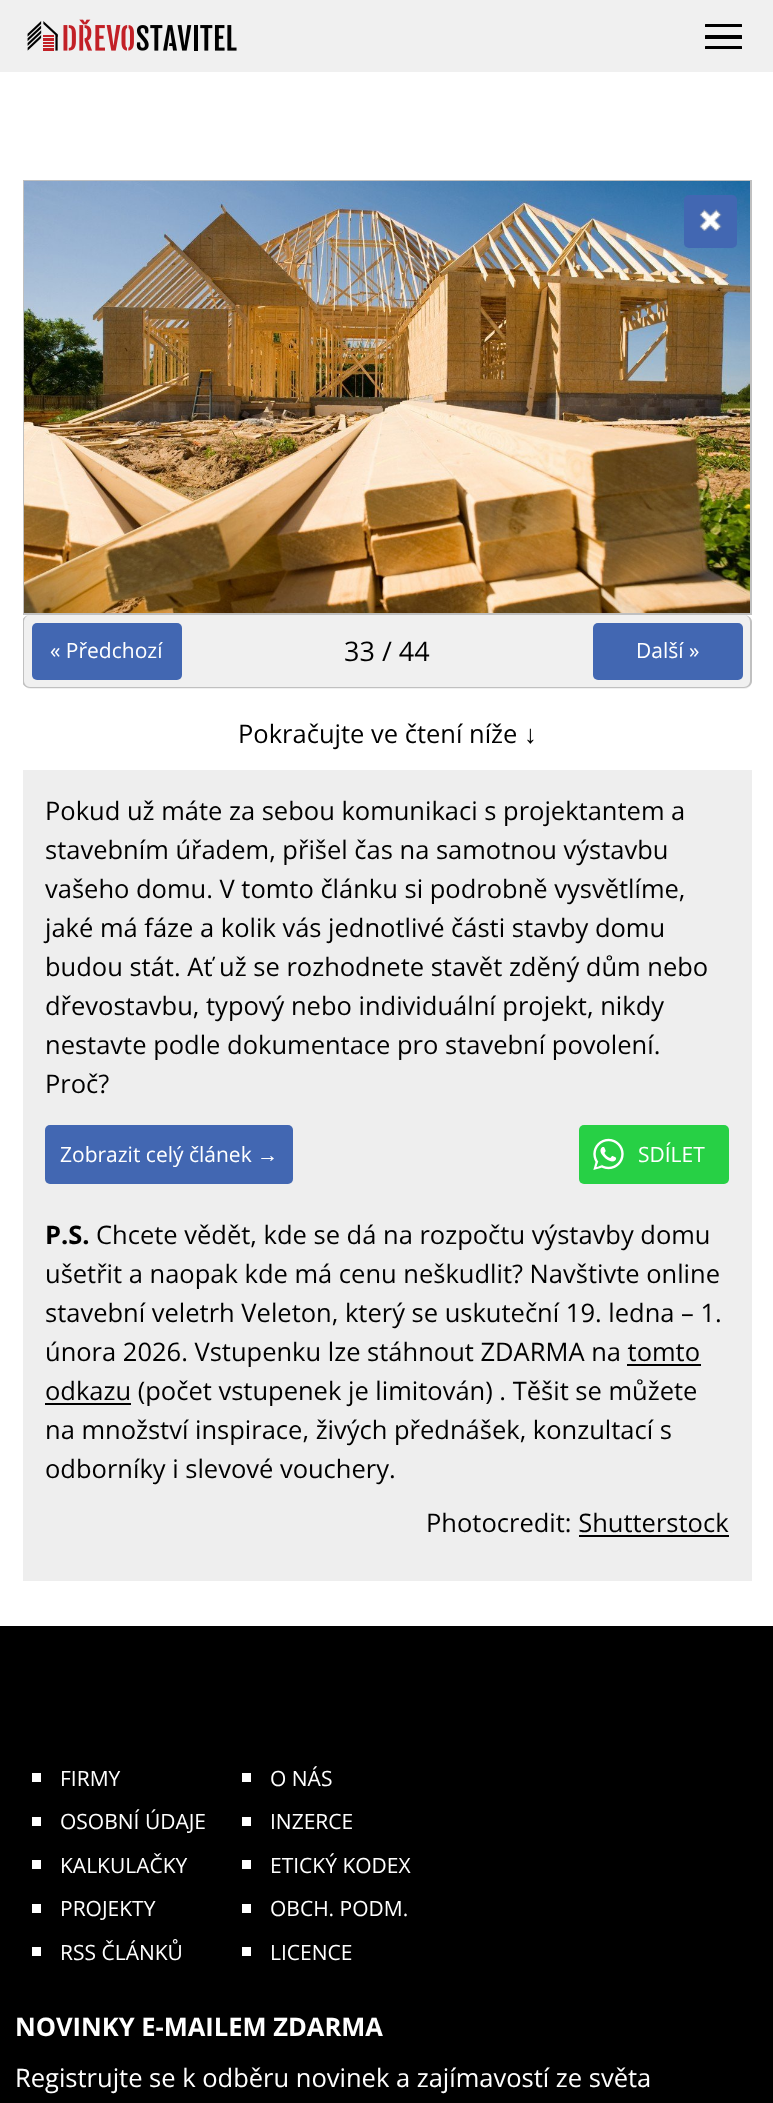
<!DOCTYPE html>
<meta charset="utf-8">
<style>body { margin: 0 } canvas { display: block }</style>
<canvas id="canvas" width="773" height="2103"></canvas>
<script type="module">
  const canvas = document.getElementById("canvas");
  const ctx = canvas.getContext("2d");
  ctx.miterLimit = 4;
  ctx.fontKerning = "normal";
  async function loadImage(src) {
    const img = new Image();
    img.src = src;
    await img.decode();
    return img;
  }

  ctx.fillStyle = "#ffffff";
  ctx.fillRect(0, 0, 773, 2103);
  ctx.fillStyle = "#f0f0f0";
  ctx.fillRect(0, 0, 773, 72);
  ctx.drawImage(await loadImage("img1.png"), 27, 19, 210, 32);
  ctx.fillStyle = "#000000";
  ctx.beginPath();
  ctx.roundRect(705, 24, 37, 3, 0.5);
  ctx.fill();
  ctx.beginPath();
  ctx.roundRect(705, 46, 37, 3, 0.5);
  ctx.fill();
  ctx.beginPath();
  ctx.roundRect(705, 35, 37, 4, 0.5);
  ctx.fill();
  ctx.strokeStyle = "#c0c0c0";
  ctx.lineWidth = 2;
  ctx.strokeRect(24, 181, 727, 433);
  ctx.drawImage(await loadImage("img2.png"), 24, 181, 726, 432);
  ctx.fillStyle = "#4267b2";
  ctx.beginPath();
  ctx.roundRect(684, 195, 53, 53, 5);
  ctx.fill();
  ctx.drawImage(await loadImage("img3.png"), 699, 209, 23, 22);
  ctx.fillStyle = "#f0f0f0";
  ctx.beginPath();
  ctx.roundRect(23, 615, 729, 74, 8);
  ctx.fill();
  ctx.save();
  ctx.beginPath();
  ctx.rect(23, 0, 729, 1581);
  ctx.clip();
  ctx.fillStyle = "#c0c0c0";
  ctx.beginPath();
  ctx.moveTo(30, 615);
  ctx.lineTo(744, 615);
  ctx.bezierCurveTo(748, 615, 752, 618, 752, 622);
  ctx.lineTo(752, 681);
  ctx.bezierCurveTo(752, 685, 748, 688, 744, 688);
  ctx.lineTo(30, 688);
  ctx.bezierCurveTo(26, 688, 22, 685, 22, 681);
  ctx.lineTo(22, 622);
  ctx.bezierCurveTo(22, 618, 26, 615, 30, 615);
  ctx.closePath();
  ctx.moveTo(30, 615);
  ctx.lineTo(744, 615);
  ctx.bezierCurveTo(747, 615, 750, 618, 750, 622);
  ctx.lineTo(750, 681);
  ctx.bezierCurveTo(750, 684, 747, 687, 744, 687);
  ctx.lineTo(30, 687);
  ctx.bezierCurveTo(27, 687, 24, 684, 24, 681);
  ctx.lineTo(24, 622);
  ctx.bezierCurveTo(24, 618, 27, 615, 30, 615);
  ctx.closePath();
  ctx.fill("evenodd");
  ctx.restore();
  ctx.fillStyle = "#4267b2";
  ctx.beginPath();
  ctx.roundRect(32, 623, 150, 57, 5);
  ctx.fill();
  ctx.font = "21px Open Sans";
  ctx.fillStyle = "#ffffff";
  ctx.fillText("« Předchozí", 50, 658);
  ctx.font = "27px Open Sans";
  ctx.fillStyle = "#000000";
  ctx.fillText("33 / 44", 344, 661);
  ctx.fillStyle = "#4267b2";
  ctx.beginPath();
  ctx.roundRect(593, 623, 150, 57, 5);
  ctx.fill();
  ctx.font = "21px Open Sans";
  ctx.fillStyle = "#ffffff";
  ctx.fillText("Další »", 636, 658);
  ctx.font = "25.5px Open Sans";
  ctx.fillStyle = "#000000";
  ctx.fillText("Pokračujte ve čtení níže", 238, 743);
  ctx.font = "25.5px Liberation Sans";
  ctx.fillText("↓", 524, 743);
  ctx.fillStyle = "#eeeeee";
  ctx.fillRect(23, 770, 729, 811);
  ctx.font = "25.5px Open Sans";
  ctx.fillStyle = "#000000";
  ctx.fillText("Pokud už máte za sebou komunikaci s projektantem a", 45, 820);
  ctx.fillText("stavebním úřadem, přišel čas na samotnou výstavbu", 45, 859);
  ctx.fillText("vašeho domu. V tomto článku si podrobně vysvětlíme,", 45, 898);
  ctx.fillText("jaké má fáze a kolik vás jednotlivé části stavby domu", 45, 937);
  ctx.fillText("budou stát. Ať už se rozhodnete stavět zděný dům nebo", 45, 976);
  ctx.fillText("dřevostavbu, typový nebo individuální projekt, nikdy", 45, 1015);
  ctx.fillText("nestavte podle dokumentace pro stavební povolení.", 45, 1054);
  ctx.fillText("Proč?", 45, 1093);
  ctx.fillStyle = "#4267b2";
  ctx.beginPath();
  ctx.roundRect(45, 1125, 248, 59, 5);
  ctx.fill();
  ctx.font = "21px Open Sans";
  ctx.fillStyle = "#ffffff";
  ctx.fillText("Zobrazit celý článek", 60, 1162);
  ctx.font = "21px Liberation Sans";
  ctx.fillText("→", 257, 1162);
  ctx.fillStyle = "#27d045";
  ctx.beginPath();
  ctx.roundRect(579, 1125, 150, 59, 5);
  ctx.fill();
  ctx.drawImage(await loadImage("img4.png"), 593, 1138, 31, 32);
  ctx.font = "21px Open Sans";
  ctx.fillStyle = "#ffffff";
  ctx.fillText("SDÍLET", 638, 1162);
  ctx.font = "bold 25.5px Open Sans";
  ctx.fillStyle = "#000000";
  ctx.fillText("P.S.", 45, 1244);
  ctx.font = "25.5px Open Sans";
  ctx.fillText("Chcete vědět, kde se dá na rozpočtu výstavby domu", 96, 1244);
  ctx.fillText("ušetřit a naopak kde má cenu neškudlit? Navštivte online", 45, 1283);
  ctx.fillText("stavební veletrh Veleton, který se uskuteční 19. ledna – 1.", 45, 1322);
  ctx.fillText("února 2026. Vstupenku lze stáhnout ZDARMA na tomto", 45, 1361);
  ctx.fillRect(45, 1403, 86, 2);
  ctx.fillText("odkazu (počet vstupenek je limitován) . Těšit se můžete", 45, 1400);
  ctx.fillRect(627, 1364, 74, 2);
  ctx.fillText("na množství inspirace, živých přednášek, konzultací s", 45, 1439);
  ctx.fillText("odborníky i slevové vouchery.", 45, 1478);
  ctx.fillText("Photocredit: Shutterstock", 426, 1532);
  ctx.fillRect(579, 1535, 150, 2);
  ctx.fillRect(0, 1626, 773, 477);
  ctx.fillStyle = "#ffffff";
  ctx.fillRect(32, 1773, 9, 9);
  ctx.font = "21px Open Sans";
  ctx.fillText("FIRMY", 60, 1786);
  ctx.fillRect(32, 1817, 9, 9);
  ctx.fillText("OSOBNÍ ÚDAJE", 60, 1829);
  ctx.fillRect(32, 1860, 9, 9);
  ctx.fillText("KALKULAČKY", 60, 1873);
  ctx.fillRect(32, 1904, 9, 9);
  ctx.fillText("PROJEKTY", 60, 1916);
  ctx.fillRect(32, 1947, 9, 9);
  ctx.fillText("RSS ČLÁNKŮ", 60, 1960);
  ctx.fillRect(242, 1773, 9, 9);
  ctx.fillText("O NÁS", 270, 1786);
  ctx.fillRect(242, 1817, 9, 9);
  ctx.fillText("INZERCE", 270, 1829);
  ctx.fillRect(242, 1860, 9, 9);
  ctx.fillText("ETICKÝ KODEX", 270, 1873);
  ctx.fillRect(242, 1904, 9, 9);
  ctx.fillText("OBCH. PODM.", 270, 1916);
  ctx.fillRect(242, 1947, 9, 9);
  ctx.fillText("LICENCE", 270, 1960);
  ctx.font = "bold 25.5px Open Sans";
  ctx.fillText("NOVINKY E-MAILEM ZDARMA", 15, 2036);
  ctx.font = "25.5px Open Sans";
  ctx.fillText("Registrujte se k odběru novinek a zajímavostí ze světa", 15, 2087);
</script>
